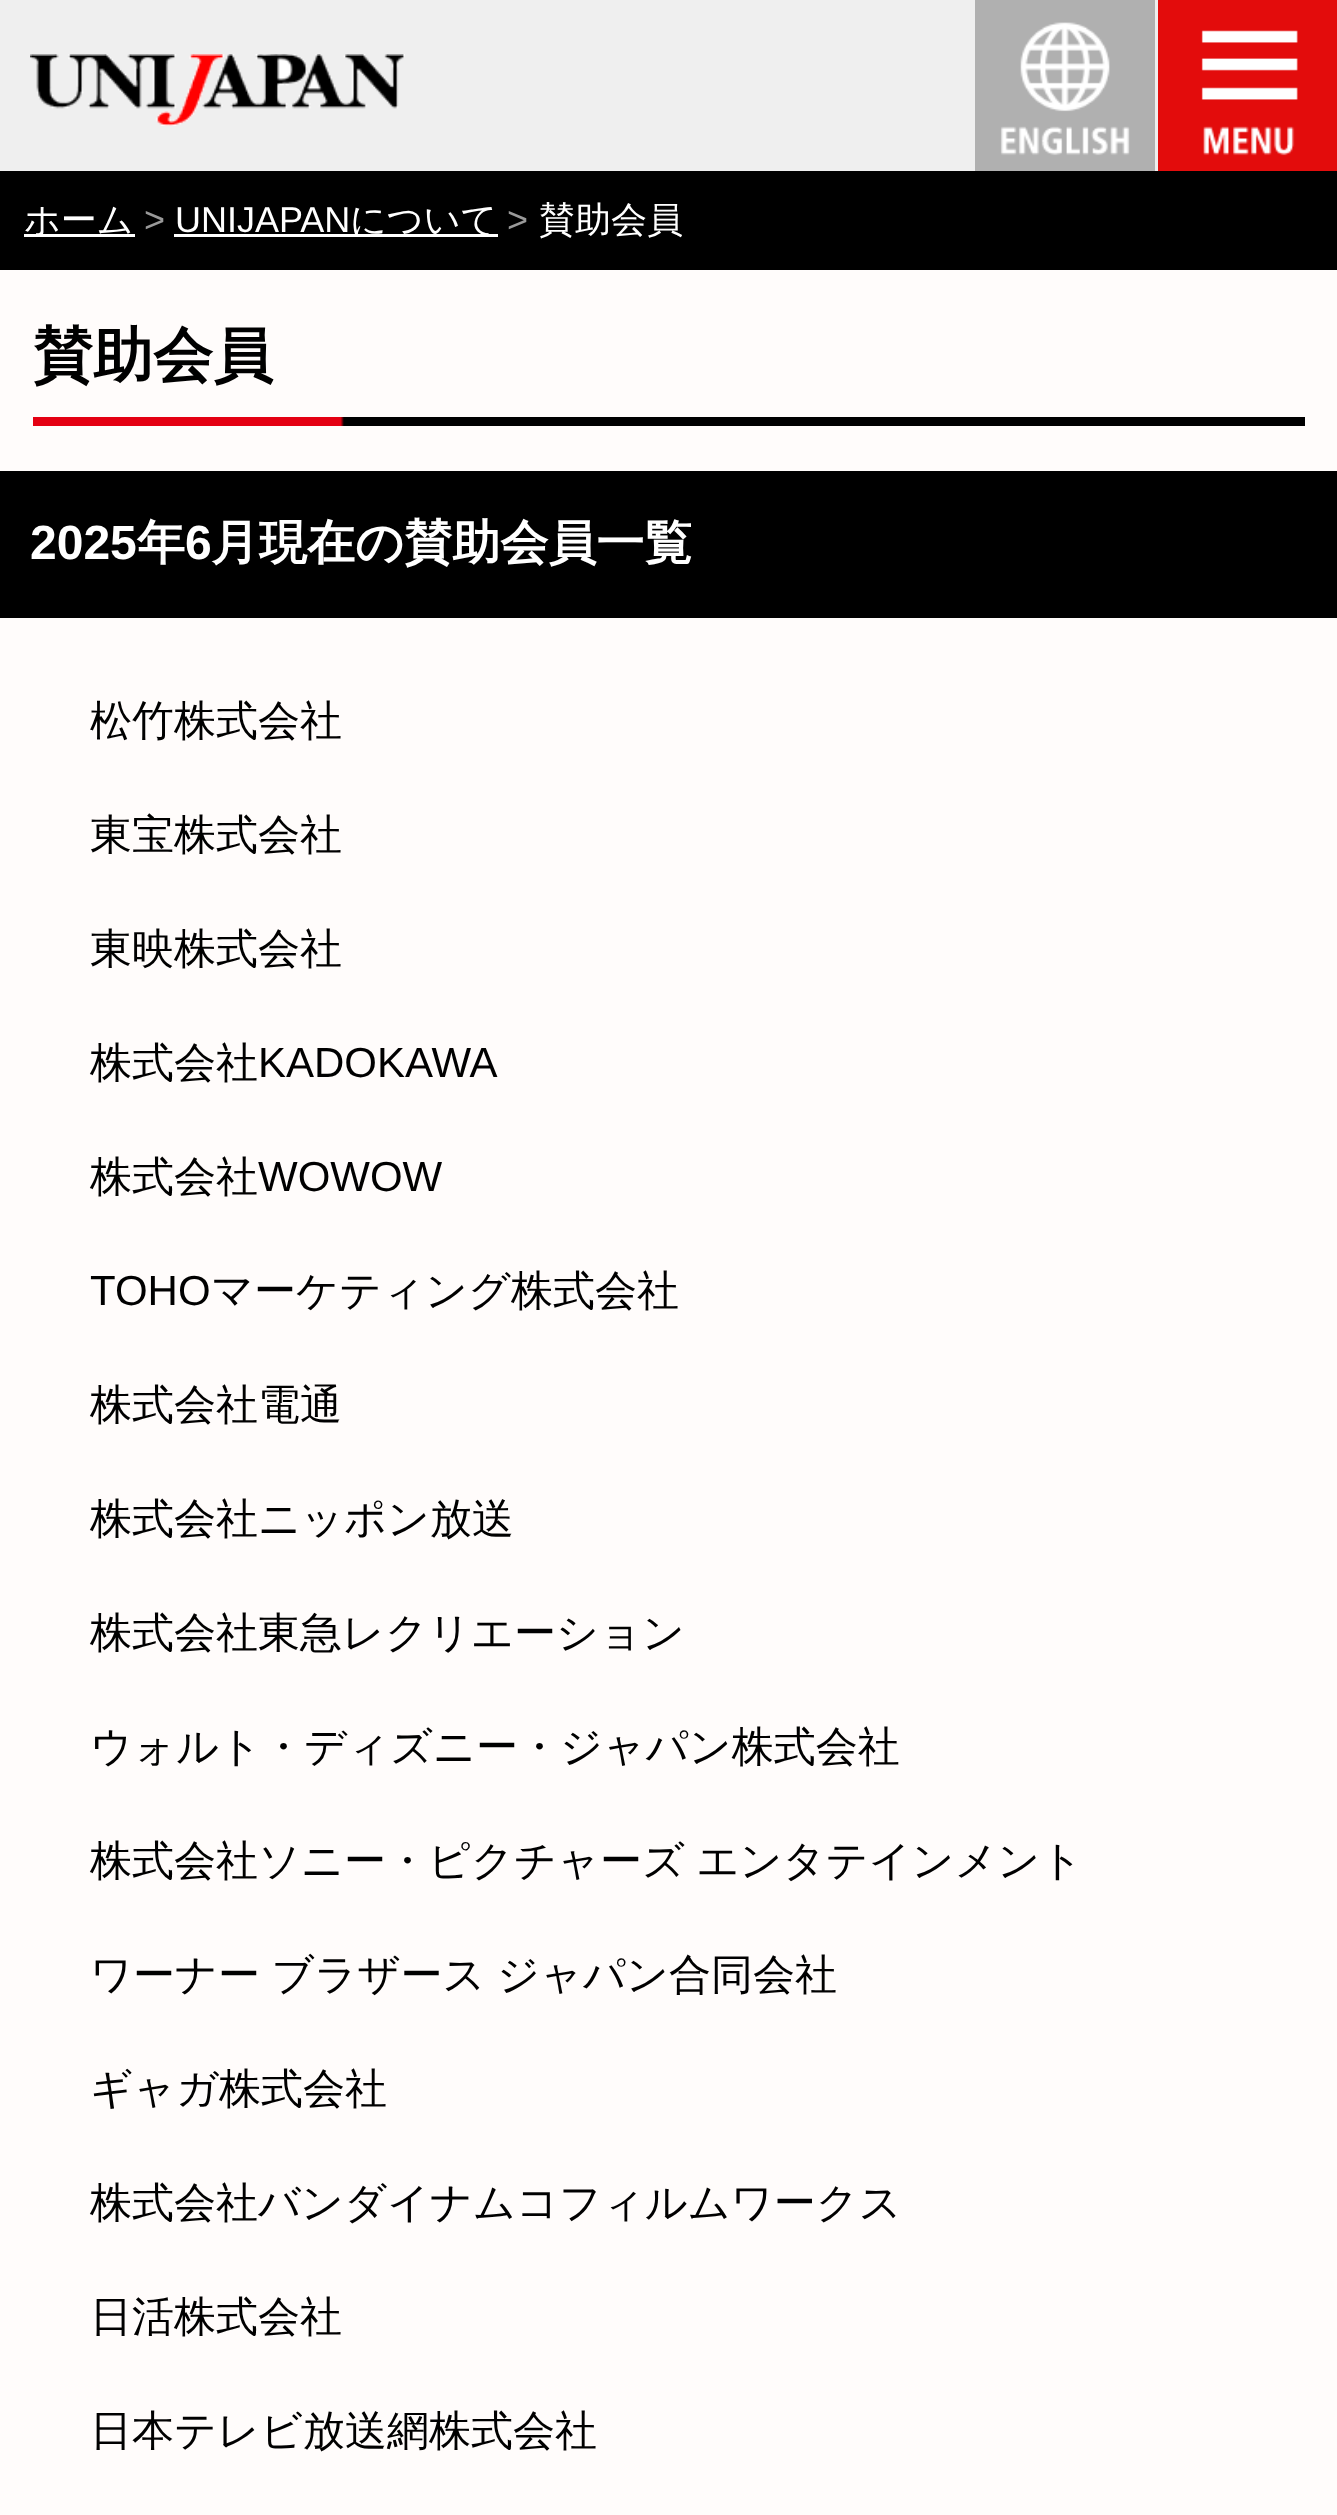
<!DOCTYPE html>
<meta charset="utf-8">
<style>body { margin: 0 } canvas { display: block }</style>
<canvas id="canvas" width="1337" height="2515"></canvas>
<script type="module">
  const canvas = document.getElementById("canvas");
  const ctx = canvas.getContext("2d");
  ctx.miterLimit = 4;
  ctx.fontKerning = "normal";
  async function loadImage(src) {
    const img = new Image();
    img.src = src;
    await img.decode();
    return img;
  }

  ctx.fillStyle = "#fffcfb";
  ctx.fillRect(0, 0, 1337, 2515);
  ctx.fillStyle = "#efefef";
  ctx.fillRect(0, 0, 1158, 171);
  ctx.drawImage(await loadImage("img1.png"), 30, 54, 375, 72);
  ctx.drawImage(await loadImage("img2.png"), 975, 0, 180, 171);
  ctx.drawImage(await loadImage("img3.png"), 1158, 0, 179, 171);
  ctx.fillStyle = "#000000";
  ctx.fillRect(0, 171, 1337, 99);
  ctx.fillStyle = "#ffffff";
  ctx.fillRect(24, 234, 111, 3);
  ctx.font = "500 36px WenQuanYi Zen Hei";
  ctx.fillText("ホーム", 24, 232);
  ctx.font = "36px Liberation Sans";
  ctx.fillStyle = "#999999";
  ctx.fillText(">", 144, 232);
  ctx.fillStyle = "#ffffff";
  ctx.fillText("UNIJAPAN", 175, 232);
  ctx.fillRect(174, 234, 324, 3);
  ctx.font = "500 36px WenQuanYi Zen Hei";
  ctx.fillText("について", 350, 232);
  ctx.font = "36px Liberation Sans";
  ctx.fillStyle = "#999999";
  ctx.fillText(">", 507, 232);
  ctx.font = "500 36px WenQuanYi Zen Hei";
  ctx.fillStyle = "#ffffff";
  ctx.fillText("賛助会員", 539, 232);
  ctx.drawImage(await loadImage("img4.png"), 33, 417, 1272, 9);
  ctx.font = "bold 60px WenQuanYi Zen Hei";
  ctx.fillStyle = "#000000";
  ctx.fillText("賛助会員", 33, 376);
  ctx.fillRect(0, 471, 1337, 147);
  ctx.font = "bold 48px Liberation Sans";
  ctx.fillStyle = "#ffffff";
  ctx.fillText("2025", 30, 559);
  ctx.font = "bold 48px WenQuanYi Zen Hei";
  ctx.fillText("年", 137, 559);
  ctx.font = "bold 48px Liberation Sans";
  ctx.fillText("6", 185, 559);
  ctx.font = "bold 48px WenQuanYi Zen Hei";
  ctx.fillText("月現在の賛助会員一覧", 211, 559);
  ctx.font = "500 42px WenQuanYi Zen Hei";
  ctx.fillStyle = "#000000";
  ctx.fillText("松竹株式会社", 90, 735);
  ctx.fillText("東宝株式会社", 90, 849);
  ctx.fillText("東映株式会社", 90, 963);
  ctx.fillText("株式会社", 90, 1077);
  ctx.font = "42px Liberation Sans";
  ctx.fillText("KADOKAWA", 258, 1077);
  ctx.font = "500 42px WenQuanYi Zen Hei";
  ctx.fillText("株式会社", 90, 1191);
  ctx.font = "42px Liberation Sans";
  ctx.fillText("WOWOW", 258, 1191);
  ctx.fillText("TOHO", 90, 1305);
  ctx.font = "500 42px WenQuanYi Zen Hei";
  ctx.fillText("マーケティング株式会社", 211, 1305);
  ctx.fillText("株式会社電通", 90, 1419);
  ctx.fillText("株式会社ニッポン放送", 90, 1533);
  ctx.fillText("株式会社東急レクリエーション", 90, 1647);
  ctx.fillText("ウォルト・ディズニー・ジャパン株式会社", 90, 1761);
  ctx.wordSpacing = "-1px";
  ctx.fillText("株式会社ソニー・ピクチャーズ エンタテインメント", 90, 1875);
  ctx.fillText("ワーナー ブラザース ジャパン合同会社", 90, 1989);
  ctx.wordSpacing = "0px";
  ctx.fillText("ギャガ株式会社", 90, 2103);
  ctx.fillText("株式会社バンダイナムコフィルムワークス", 90, 2217);
  ctx.fillText("日活株式会社", 90, 2331);
  ctx.fillText("日本テレビ放送網株式会社", 90, 2445);
</script>
